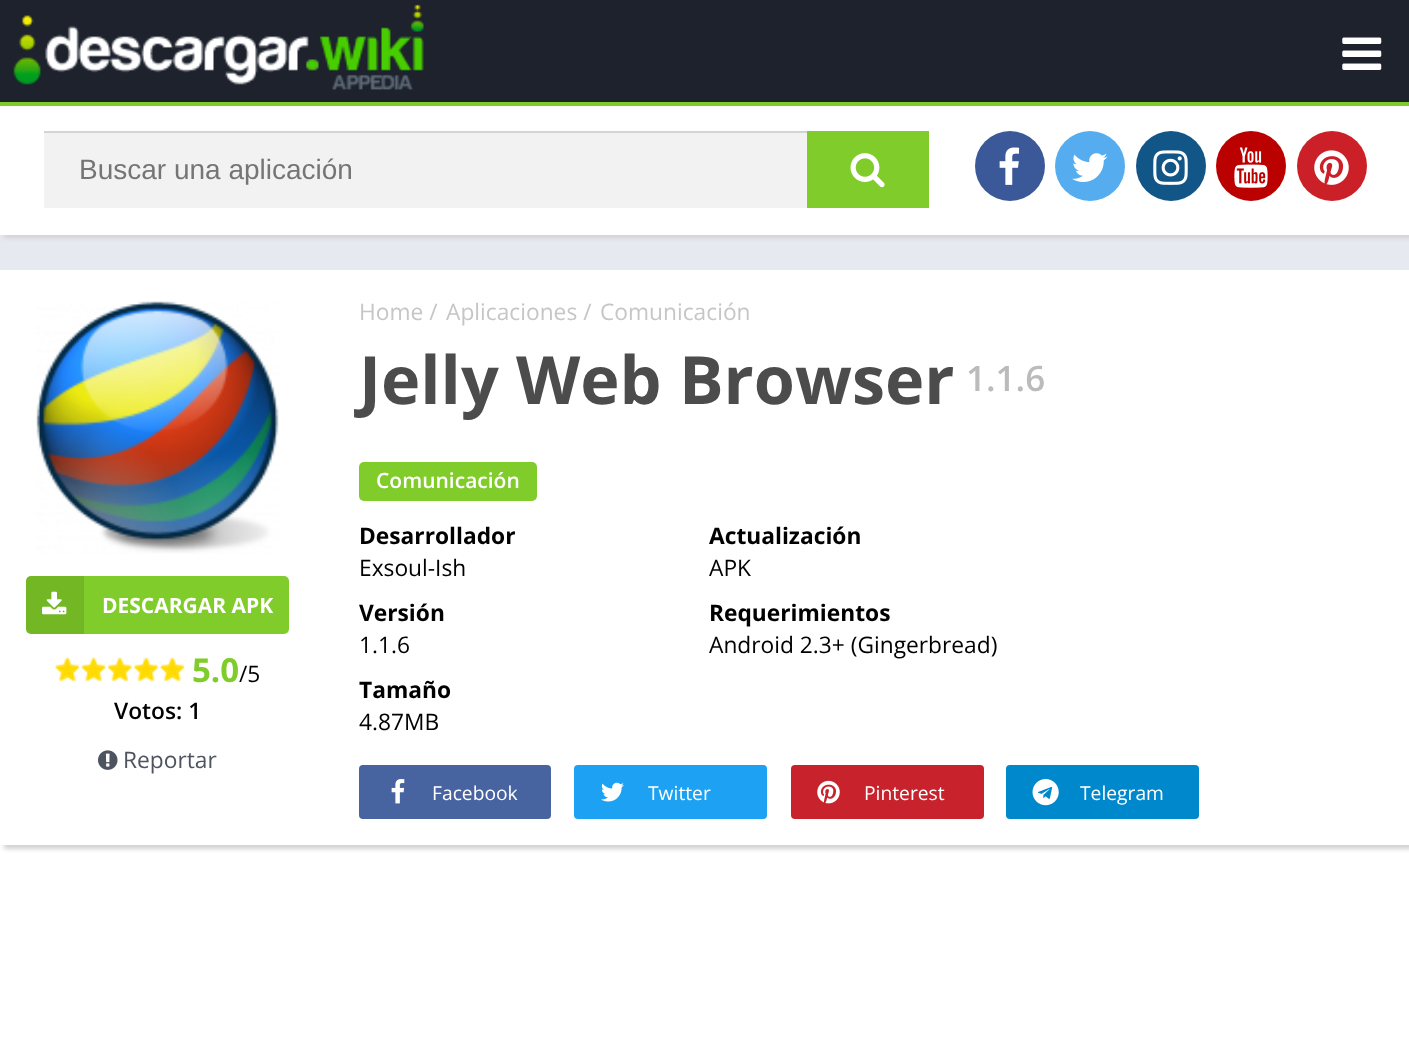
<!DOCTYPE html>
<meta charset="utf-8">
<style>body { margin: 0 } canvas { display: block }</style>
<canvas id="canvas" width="1409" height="1045"></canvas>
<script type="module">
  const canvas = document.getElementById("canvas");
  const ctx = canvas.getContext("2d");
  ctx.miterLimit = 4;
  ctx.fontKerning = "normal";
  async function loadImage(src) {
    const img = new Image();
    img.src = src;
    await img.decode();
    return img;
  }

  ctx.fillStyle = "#e6e9ef";
  ctx.fillRect(0, 0, 1409, 1045);
  ctx.fillStyle = "#d2d1d1";
  ctx.filter = "blur(2px)";
  ctx.beginPath();
  ctx.rect(4, 4, 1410, 234);
  ctx.fill();
  ctx.filter = "none";
  ctx.fillStyle = "#1d222d";
  ctx.fillRect(0, 0, 1409, 102);
  ctx.fillStyle = "#80cc2a";
  ctx.fillRect(0, 102, 1409, 4);
  ctx.drawImage(await loadImage("img1.png"), 13, 4, 411, 86);
  ctx.drawImage(await loadImage("img2.png"), 1342, 37, 40, 33);
  ctx.fillStyle = "#ffffff";
  ctx.fillRect(0, 106, 1409, 129);
  ctx.fillStyle = "#f2f2f2";
  ctx.fillRect(44, 133, 763, 75);
  ctx.fillStyle = "#d4d4d4";
  ctx.fillRect(44, 131, 763, 2);
  ctx.font = "28px Liberation Sans";
  ctx.fillStyle = "#757575";
  ctx.fillText("Buscar una aplicación", 79, 179);
  ctx.fillStyle = "#80cc2a";
  ctx.fillRect(807, 131, 122, 77);
  ctx.drawImage(await loadImage("img3.png"), 850, 153, 35, 35);
  ctx.fillStyle = "#3b5998";
  ctx.beginPath();
  ctx.arc(1010, 166, 35, 0, Math.PI * 2);
  ctx.fill();
  ctx.drawImage(await loadImage("img4.png"), 999, 147, 21, 38);
  ctx.fillStyle = "#55acee";
  ctx.beginPath();
  ctx.arc(1090, 166, 35, 0, Math.PI * 2);
  ctx.fill();
  ctx.drawImage(await loadImage("img5.png"), 1072, 153, 36, 29);
  ctx.fillStyle = "#125688";
  ctx.beginPath();
  ctx.arc(1171, 166, 35, 0, Math.PI * 2);
  ctx.fill();
  ctx.drawImage(await loadImage("img6.png"), 1153, 150, 35, 35);
  ctx.fillStyle = "#bb0000";
  ctx.beginPath();
  ctx.arc(1251, 166, 35, 0, Math.PI * 2);
  ctx.fill();
  ctx.drawImage(await loadImage("img7.png"), 1234, 147, 34, 41);
  ctx.fillStyle = "#cb2027";
  ctx.beginPath();
  ctx.arc(1332, 166, 35, 0, Math.PI * 2);
  ctx.fill();
  ctx.drawImage(await loadImage("img8.png"), 1314, 150, 35, 35);
  ctx.fillStyle = "#ffffff";
  ctx.fillRect(0, 270, 1409, 775);
  ctx.save();
  ctx.beginPath();
  ctx.rect(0, 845, 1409, 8);
  ctx.clip();
  ctx.fillStyle = "#d2d1d1";
  ctx.filter = "blur(2px)";
  ctx.beginPath();
  ctx.rect(4, 273, 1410, 576);
  ctx.fill();
  ctx.filter = "none";
  ctx.restore();
  ctx.font = "22.75px Open Sans";
  ctx.fillStyle = "#c6c6c6";
  ctx.fillText("Home /", 359, 320);
  ctx.fillText("Aplicaciones /", 446, 320);
  ctx.fillText("Comunicación", 600, 320);
  ctx.font = "bold 66.5px Open Sans";
  ctx.fillStyle = "#4c4c4c";
  ctx.fillText("Jelly Web Browser", 359, 404);
  ctx.font = "600 35px Open Sans";
  ctx.fillStyle = "#bbbbbb";
  ctx.fillText("1.1.6", 966, 391);
  ctx.fillStyle = "#80cc2a";
  ctx.beginPath();
  ctx.roundRect(359, 462, 178, 39, 5);
  ctx.fill();
  ctx.font = "600 21px Open Sans";
  ctx.fillStyle = "#ffffff";
  ctx.fillText("Comunicación", 376, 488);
  ctx.drawImage(await loadImage("img9.png"), 36, 301, 243, 253);
  ctx.fillStyle = "#80cc2a";
  ctx.beginPath();
  ctx.roundRect(26, 576, 263, 58, 5);
  ctx.fill();
  ctx.fillStyle = "rgba(0, 0, 0, 0.1)";
  ctx.beginPath();
  ctx.roundRect(26, 576, 58, 58, [5, 0, 0, 5]);
  ctx.fill();
  ctx.fillStyle = "#71b425";
  ctx.fillRect(82, 576, 2, 58);
  ctx.drawImage(await loadImage("img10.png"), 42, 591, 25, 24);
  ctx.font = "bold 21px Open Sans";
  ctx.fillStyle = "#ffffff";
  ctx.fillText("DESCARGAR APK", 102, 613);
  ctx.drawImage(await loadImage("img11.png"), 55, 657, 130, 25);
  ctx.drawImage(await loadImage("img12.png"), 55, 657, 130, 25);
  ctx.font = "bold 33px Open Sans";
  ctx.fillStyle = "#80cc2a";
  ctx.fillText("5.0", 192, 682);
  ctx.font = "22.75px Open Sans";
  ctx.fillStyle = "#000000";
  ctx.fillText("/5", 239, 682);
  ctx.font = "600 22.75px Open Sans";
  ctx.fillText("Votos: 1", 114, 719);
  ctx.drawImage(await loadImage("img13.png"), 98, 750, 20, 20);
  ctx.font = "22.75px Open Sans";
  ctx.fillStyle = "#4d535f";
  ctx.fillText("Reportar", 123, 768);
  ctx.font = "bold 22.75px Open Sans";
  ctx.fillStyle = "#000000";
  ctx.fillText("Desarrollador", 359, 544);
  ctx.font = "22.75px Open Sans";
  ctx.fillText("Exsoul-Ish", 359, 576);
  ctx.font = "bold 22.75px Open Sans";
  ctx.fillText("Versión", 359, 621);
  ctx.font = "22.75px Open Sans";
  ctx.fillText("1.1.6", 359, 653);
  ctx.font = "bold 22.75px Open Sans";
  ctx.fillText("Actualización", 709, 544);
  ctx.font = "22.75px Open Sans";
  ctx.fillText("APK", 709, 576);
  ctx.font = "bold 22.75px Open Sans";
  ctx.fillText("Requerimientos", 709, 621);
  ctx.font = "22.75px Open Sans";
  ctx.fillText("Android 2.3+ (Gingerbread)", 709, 653);
  ctx.font = "bold 22.75px Open Sans";
  ctx.fillText("Tamaño", 359, 698);
  ctx.font = "22.75px Open Sans";
  ctx.fillText("4.87MB", 359, 730);
  ctx.fillStyle = "#4864a0";
  ctx.beginPath();
  ctx.roundRect(359, 765, 192, 54, 4);
  ctx.fill();
  ctx.drawImage(await loadImage("img14.png"), 391, 779, 14, 25);
  ctx.font = "19.25px Open Sans";
  ctx.fillStyle = "#ffffff";
  ctx.fillText("Facebook", 432, 800);
  ctx.fillStyle = "#1da1f2";
  ctx.beginPath();
  ctx.roundRect(574, 765, 193, 54, 4);
  ctx.fill();
  ctx.drawImage(await loadImage("img15.png"), 601, 782, 23, 20);
  ctx.fillStyle = "#ffffff";
  ctx.fillText("Twitter", 648, 800);
  ctx.fillStyle = "#c8232c";
  ctx.beginPath();
  ctx.roundRect(791, 765, 193, 54, 4);
  ctx.fill();
  ctx.drawImage(await loadImage("img16.png"), 817, 780, 23, 24);
  ctx.fillStyle = "#ffffff";
  ctx.fillText("Pinterest", 864, 800);
  ctx.fillStyle = "#0088cc";
  ctx.beginPath();
  ctx.roundRect(1006, 765, 193, 54, 4);
  ctx.fill();
  ctx.drawImage(await loadImage("img17.png"), 1032, 779, 27, 27);
  ctx.fillStyle = "#ffffff";
  ctx.fillText("Telegram", 1080, 800);
</script>
